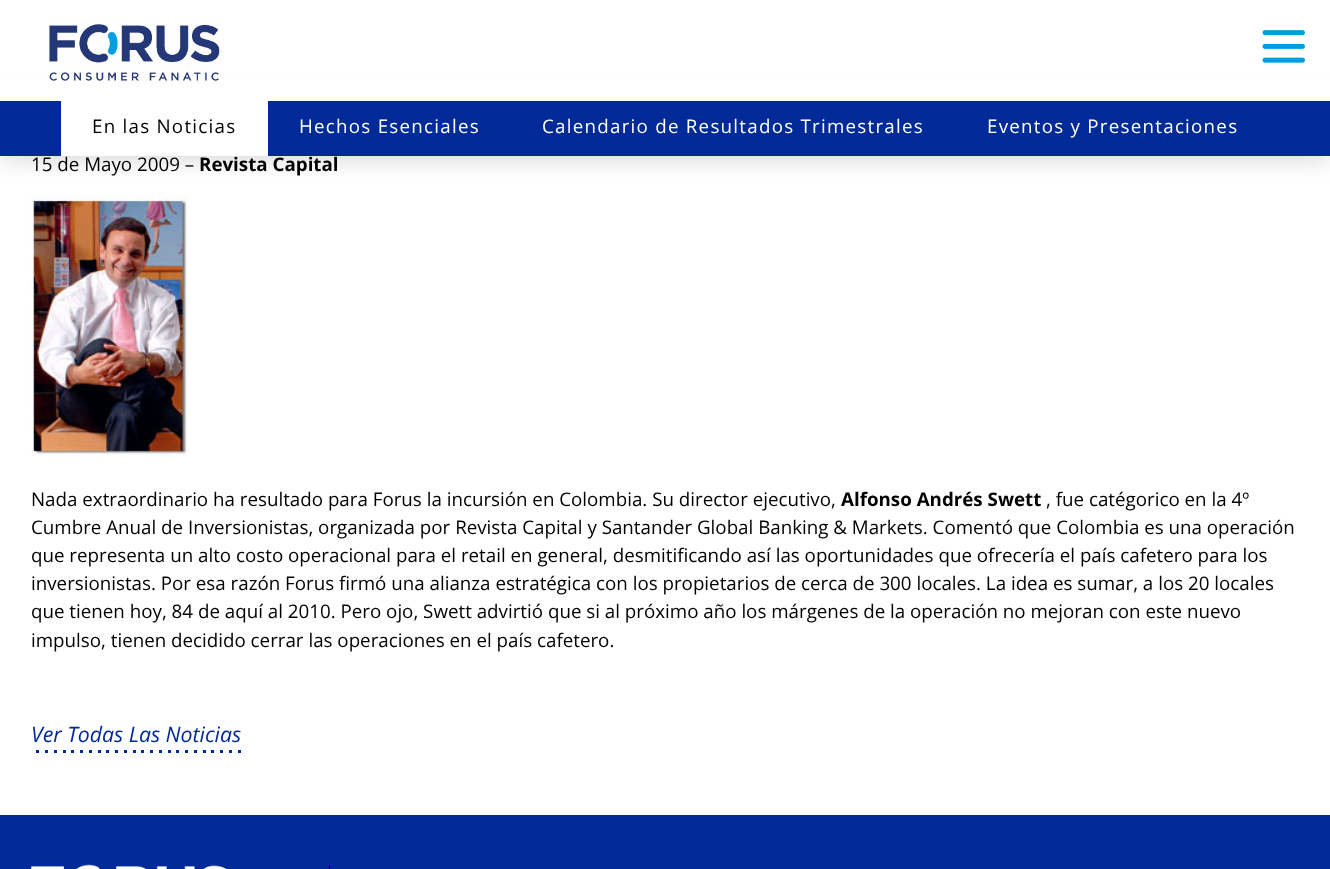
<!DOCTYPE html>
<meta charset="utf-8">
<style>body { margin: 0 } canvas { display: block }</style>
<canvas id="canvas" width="1330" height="869"></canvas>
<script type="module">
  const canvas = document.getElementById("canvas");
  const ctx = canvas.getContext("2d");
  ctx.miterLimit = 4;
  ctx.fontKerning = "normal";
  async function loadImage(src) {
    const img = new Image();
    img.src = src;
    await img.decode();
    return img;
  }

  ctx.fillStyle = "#ffffff";
  ctx.fillRect(0, 0, 1330, 869);
  ctx.drawImage(await loadImage("img3.png"), 31, 196, 157, 260);
  ctx.fillStyle = "rgba(40, 48, 51, 0.2)";
  ctx.filter = "blur(12.5px)";
  ctx.beginPath();
  ctx.rect(0, 98, 1330, 61);
  ctx.fill();
  ctx.filter = "none";
  ctx.fillStyle = "#ffffff";
  ctx.fillRect(0, 79, 1330, 22);
  ctx.drawImage(await loadImage("img1.png"), 49, 24, 171, 57);
  ctx.drawImage(await loadImage("img2.png"), 1262, 30, 43, 33);
  ctx.fillStyle = "#002a98";
  ctx.fillRect(0, 101, 1330, 55);
  ctx.fillStyle = "#ffffff";
  ctx.fillRect(61, 101, 207, 55);
  ctx.letterSpacing = "1.25px";
  ctx.font = "18.75px Open Sans";
  ctx.fillStyle = "#000000";
  ctx.fillText("En las Noticias", 92, 133);
  ctx.fillStyle = "#ffffff";
  ctx.fillText("Hechos Esenciales", 299, 133);
  ctx.fillText("Calendario de Resultados Trimestrales", 542, 133);
  ctx.fillText("Eventos y Presentaciones", 987, 133);
  ctx.letterSpacing = "0px";
  ctx.fillStyle = "#000000";
  ctx.fillText("15 de Mayo 2009 –", 31, 171);
  ctx.font = "bold 18.75px Open Sans";
  ctx.fillText("Revista Capital", 199, 171);
  ctx.font = "18.75px Open Sans";
  ctx.fillText("Nada extraordinario ha resultado para Forus la incursión en Colombia. Su director ejecutivo,", 31, 506);
  ctx.font = "bold 18.75px Open Sans";
  ctx.fillText("Alfonso Andrés Swett", 841, 506);
  ctx.font = "18.75px Open Sans";
  ctx.fillText(", fue catégorico en la 4º", 1046, 506);
  ctx.fillText("Cumbre Anual de Inversionistas, organizada por Revista Capital y Santander Global Banking & Markets. Comentó que Colombia es una operación", 31, 534);
  ctx.fillText("que representa un alto costo operacional para el retail en general, desmitificando así las oportunidades que ofrecería el país cafetero para los", 31, 562);
  ctx.fillText("inversionistas. Por esa razón Forus firmó una alianza estratégica con los propietarios de cerca de 300 locales. La idea es sumar, a los 20 locales", 31, 590);
  ctx.fillText("que tienen hoy, 84 de aquí al 2010. Pero ojo, Swett advirtió que si al próximo año los márgenes de la operación no mejoran con este nuevo", 31, 618);
  ctx.fillText("impulso, tienen decidido cerrar las operaciones en el país cafetero.", 31, 647);
  ctx.drawImage(await loadImage("img4.png"), 36, 750, 205, 3);
  ctx.font = "italic 21.25px Open Sans";
  ctx.fillStyle = "#002a98";
  ctx.fillText("Ver Todas Las Noticias", 31, 742);
  ctx.fillRect(0, 815, 1330, 54);
  ctx.fillStyle = "#000000";
  ctx.fillRect(329, 865, 1, 4);
  ctx.drawImage(await loadImage("img5.png"), 31, 864, 196, 5);
</script>
